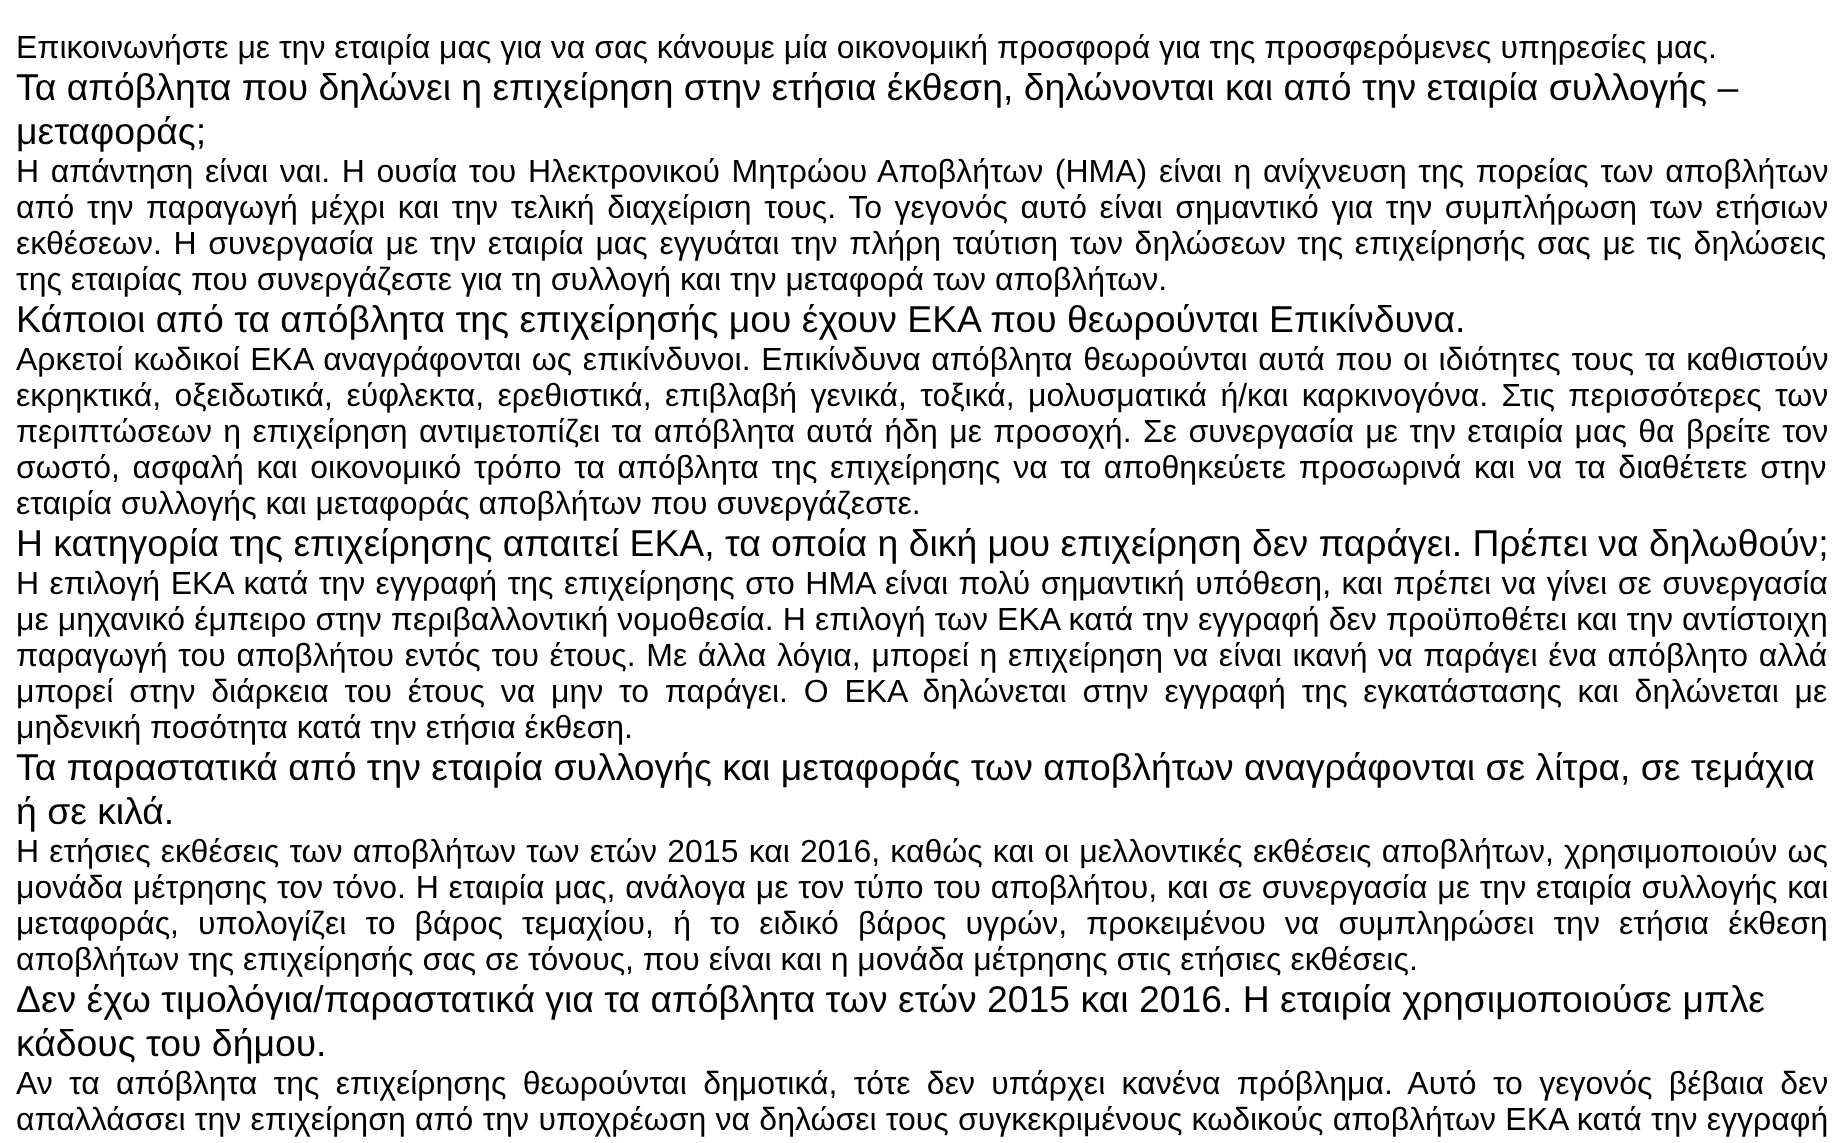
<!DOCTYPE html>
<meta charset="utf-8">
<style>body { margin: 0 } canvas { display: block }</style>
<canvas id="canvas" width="1844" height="1143"></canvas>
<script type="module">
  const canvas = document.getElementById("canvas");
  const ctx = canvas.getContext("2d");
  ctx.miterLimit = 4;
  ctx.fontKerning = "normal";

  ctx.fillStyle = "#ffffff";
  ctx.fillRect(0, 0, 1844, 1143);
  ctx.font = "32px Liberation Sans";
  ctx.fillStyle = "#000000";
  ctx.fillText("Επικοινωνήστε με την εταιρία μας για να σας κάνουμε μία οικονομική προσφορά για της προσφερόμενες υπηρεσίες μας.", 16, 58);
  ctx.font = "37.35px Liberation Sans";
  ctx.fillText("Τα απόβλητα που δηλώνει η επιχείρηση στην ετήσια έκθεση, δηλώνονται και από την εταιρία συλλογής –", 16, 100);
  ctx.fillText("μεταφοράς;", 16, 144);
  ctx.wordSpacing = "2.75px";
  ctx.font = "32px Liberation Sans";
  ctx.fillText("Η απάντηση είναι ναι. Η ουσία του Ηλεκτρονικού Μητρώου Αποβλήτων (ΗΜΑ) είναι η ανίχνευση της πορείας των αποβλήτων", 16, 182);
  ctx.wordSpacing = "3.75px";
  ctx.fillText("από την παραγωγή μέχρι και την τελική διαχείριση τους. Το γεγονός αυτό είναι σημαντικό για την συμπλήρωση των ετήσιων", 16, 218);
  ctx.wordSpacing = "2.75px";
  ctx.fillText("εκθέσεων. Η συνεργασία με την εταιρία μας εγγυάται την πλήρη ταύτιση των δηλώσεων της επιχείρησής σας με τις δηλώσεις", 16, 254);
  ctx.wordSpacing = "0px";
  ctx.fillText("της εταιρίας που συνεργάζεστε για τη συλλογή και την μεταφορά των αποβλήτων.", 16, 290);
  ctx.font = "37.35px Liberation Sans";
  ctx.fillText("Κάποιοι από τα απόβλητα της επιχείρησής μου έχουν ΕΚΑ που θεωρούνται Επικίνδυνα.", 16, 332);
  ctx.wordSpacing = "1.75px";
  ctx.font = "32px Liberation Sans";
  ctx.fillText("Αρκετοί κωδικοί ΕΚΑ αναγράφονται ως επικίνδυνοι. Επικίνδυνα απόβλητα θεωρούνται αυτά που οι ιδιότητες τους τα καθιστούν", 16, 370);
  ctx.wordSpacing = "4.5px";
  ctx.fillText("εκρηκτικά, οξειδωτικά, εύφλεκτα, ερεθιστικά, επιβλαβή γενικά, τοξικά, μολυσματικά ή/και καρκινογόνα. Στις περισσότερες των", 16, 406);
  ctx.wordSpacing = "2.5px";
  ctx.fillText("περιπτώσεων η επιχείρηση αντιμετοπίζει τα απόβλητα αυτά ήδη με προσοχή. Σε συνεργασία με την εταιρία μας θα βρείτε τον", 16, 442);
  ctx.wordSpacing = "3.75px";
  ctx.fillText("σωστό, ασφαλή και οικονομικό τρόπο τα απόβλητα της επιχείρησης να τα αποθηκεύετε προσωρινά και να τα διαθέτετε στην", 16, 478);
  ctx.wordSpacing = "0px";
  ctx.fillText("εταιρία συλλογής και μεταφοράς αποβλήτων που συνεργάζεστε.", 16, 514);
  ctx.font = "37.35px Liberation Sans";
  ctx.fillText("Η κατηγορία της επιχείρησης απαιτεί ΕΚΑ, τα οποία η δική μου επιχείρηση δεν παράγει. Πρέπει να δηλωθούν;", 16, 556);
  ctx.wordSpacing = "1.6px";
  ctx.font = "32px Liberation Sans";
  ctx.fillText("Η επιλογή ΕΚΑ κατά την εγγραφή της επιχείρησης στο ΗΜΑ είναι πολύ σημαντική υπόθεση, και πρέπει να γίνει σε συνεργασία", 16, 594);
  ctx.wordSpacing = "0.25px";
  ctx.fillText("με μηχανικό έμπειρο στην περιβαλλοντική νομοθεσία. Η επιλογή των ΕΚΑ κατά την εγγραφή δεν προϋποθέτει και την αντίστοιχη", 16, 630);
  ctx.wordSpacing = "1.75px";
  ctx.fillText("παραγωγή του αποβλήτου εντός του έτους. Με άλλα λόγια, μπορεί η επιχείρηση να είναι ικανή να παράγει ένα απόβλητο αλλά", 16, 666);
  ctx.wordSpacing = "6.9px";
  ctx.fillText("μπορεί στην διάρκεια του έτους να μην το παράγει. Ο ΕΚΑ δηλώνεται στην εγγραφή της εγκατάστασης και δηλώνεται με", 16, 702);
  ctx.wordSpacing = "0px";
  ctx.fillText("μηδενική ποσότητα κατά την ετήσια έκθεση.", 16, 738);
  ctx.font = "37.35px Liberation Sans";
  ctx.fillText("Τα παραστατικά από την εταιρία συλλογής και μεταφοράς των αποβλήτων αναγράφονται σε λίτρα, σε τεμάχια", 16, 780);
  ctx.fillText("ή σε κιλά.", 16, 824);
  ctx.wordSpacing = "1.3px";
  ctx.font = "32px Liberation Sans";
  ctx.fillText("Η ετήσιες εκθέσεις των αποβλήτων των ετών 2015 και 2016, καθώς και οι μελλοντικές εκθέσεις αποβλήτων, χρησιμοποιούν ως", 16, 862);
  ctx.wordSpacing = "0.9px";
  ctx.fillText("μονάδα μέτρησης τον τόνο. Η εταιρία μας, ανάλογα με τον τύπο του αποβλήτου, και σε συνεργασία με την εταιρία συλλογής και", 16, 898);
  ctx.wordSpacing = "10.25px";
  ctx.fillText("μεταφοράς, υπολογίζει το βάρος τεμαχίου, ή το ειδικό βάρος υγρών, προκειμένου να συμπληρώσει την ετήσια έκθεση", 16, 934);
  ctx.wordSpacing = "0px";
  ctx.fillText("αποβλήτων της επιχείρησής σας σε τόνους, που είναι και η μονάδα μέτρησης στις ετήσιες εκθέσεις.", 16, 970);
  ctx.font = "37.35px Liberation Sans";
  ctx.fillText("Δεν έχω τιμολόγια/παραστατικά για τα απόβλητα των ετών 2015 και 2016. Η εταιρία χρησιμοποιούσε μπλε", 16, 1012);
  ctx.fillText("κάδους του δήμου.", 16, 1056);
  ctx.wordSpacing = "7.4px";
  ctx.font = "32px Liberation Sans";
  ctx.fillText("Αν τα απόβλητα της επιχείρησης θεωρούνται δημοτικά, τότε δεν υπάρχει κανένα πρόβλημα. Αυτό το γεγονός βέβαια δεν", 16, 1094);
  ctx.wordSpacing = "0.4px";
  ctx.fillText("απαλλάσσει την επιχείρηση από την υποχρέωση να δηλώσει τους συγκεκριμένους κωδικούς αποβλήτων ΕΚΑ κατά την εγγραφή", 16, 1130);
</script>
